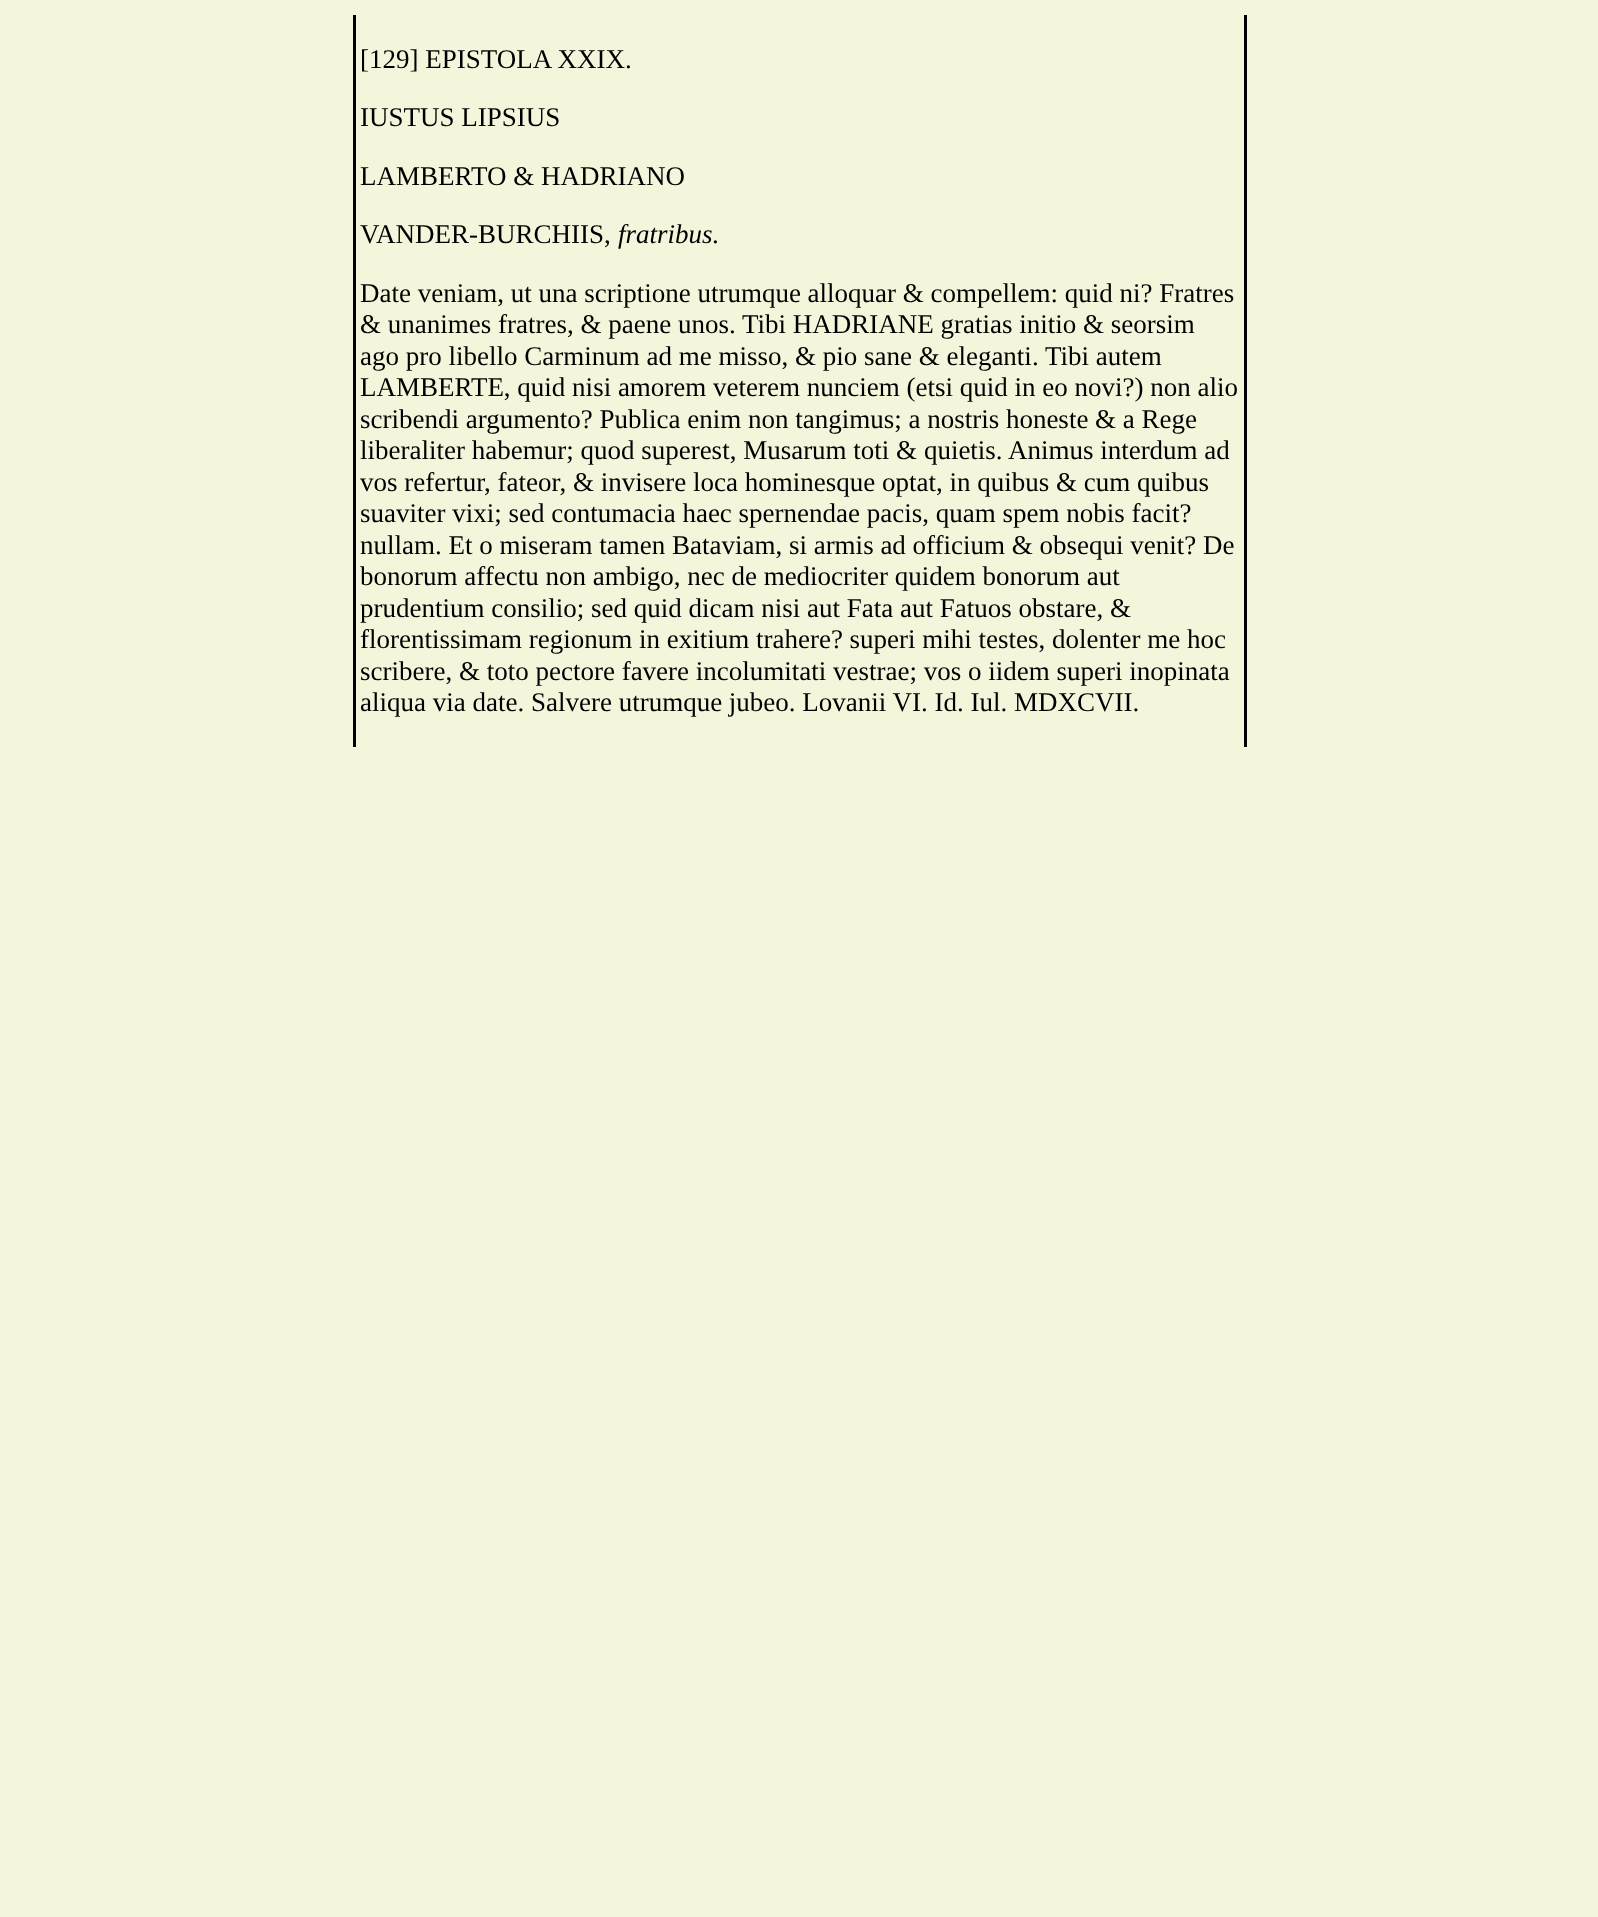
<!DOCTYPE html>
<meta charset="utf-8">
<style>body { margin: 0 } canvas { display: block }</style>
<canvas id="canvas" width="1598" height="1917"></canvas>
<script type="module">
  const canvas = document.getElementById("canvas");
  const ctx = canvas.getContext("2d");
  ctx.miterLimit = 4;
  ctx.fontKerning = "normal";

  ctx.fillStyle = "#f5f5dc";
  ctx.fillRect(0, 0, 1598, 1917);
  ctx.fillStyle = "#000000";
  ctx.fillRect(353, 15, 3, 732);
  ctx.font = "27px Liberation Serif";
  ctx.fillText("[129] EPISTOLA XXIX.", 360, 68);
  ctx.fillText("IUSTUS LIPSIUS", 360, 126);
  ctx.fillText("LAMBERTO & HADRIANO", 360, 185);
  ctx.fillText("VANDER-BURCHIIS,", 360, 243);
  ctx.font = "italic 27px Liberation Serif";
  ctx.fillText("fratribus", 618, 243);
  ctx.font = "27px Liberation Serif";
  ctx.fillText(".", 712, 243);
  ctx.fillText("Date veniam, ut una scriptione utrumque alloquar & compellem: quid ni? Fratres", 360, 302);
  ctx.fillText("& unanimes fratres, & paene unos. Tibi HADRIANE gratias initio & seorsim", 360, 333);
  ctx.fillText("ago pro libello Carminum ad me misso, & pio sane & eleganti. Tibi autem", 360, 365);
  ctx.fillText("LAMBERTE, quid nisi amorem veterem nunciem (etsi quid in eo novi?) non alio", 360, 396);
  ctx.fillText("scribendi argumento? Publica enim non tangimus; a nostris honeste & a Rege", 360, 428);
  ctx.fillText("liberaliter habemur; quod superest, Musarum toti & quietis. Animus interdum ad", 360, 459);
  ctx.fillText("vos refertur, fateor, & invisere loca hominesque optat, in quibus & cum quibus", 360, 491);
  ctx.fillText("suaviter vixi; sed contumacia haec spernendae pacis, quam spem nobis facit?", 360, 522);
  ctx.fillText("nullam. Et o miseram tamen Bataviam, si armis ad officium & obsequi venit? De", 360, 554);
  ctx.fillText("bonorum affectu non ambigo, nec de mediocriter quidem bonorum aut", 360, 585);
  ctx.fillText("prudentium consilio; sed quid dicam nisi aut Fata aut Fatuos obstare, &", 360, 617);
  ctx.fillText("florentissimam regionum in exitium trahere? superi mihi testes, dolenter me hoc", 360, 648);
  ctx.fillText("scribere, & toto pectore favere incolumitati vestrae; vos o iidem superi inopinata", 360, 680);
  ctx.fillText("aliqua via date. Salvere utrumque jubeo. Lovanii VI. Id. Iul. MDXCVII.", 360, 711);
  ctx.fillRect(1244, 15, 3, 732);
</script>
